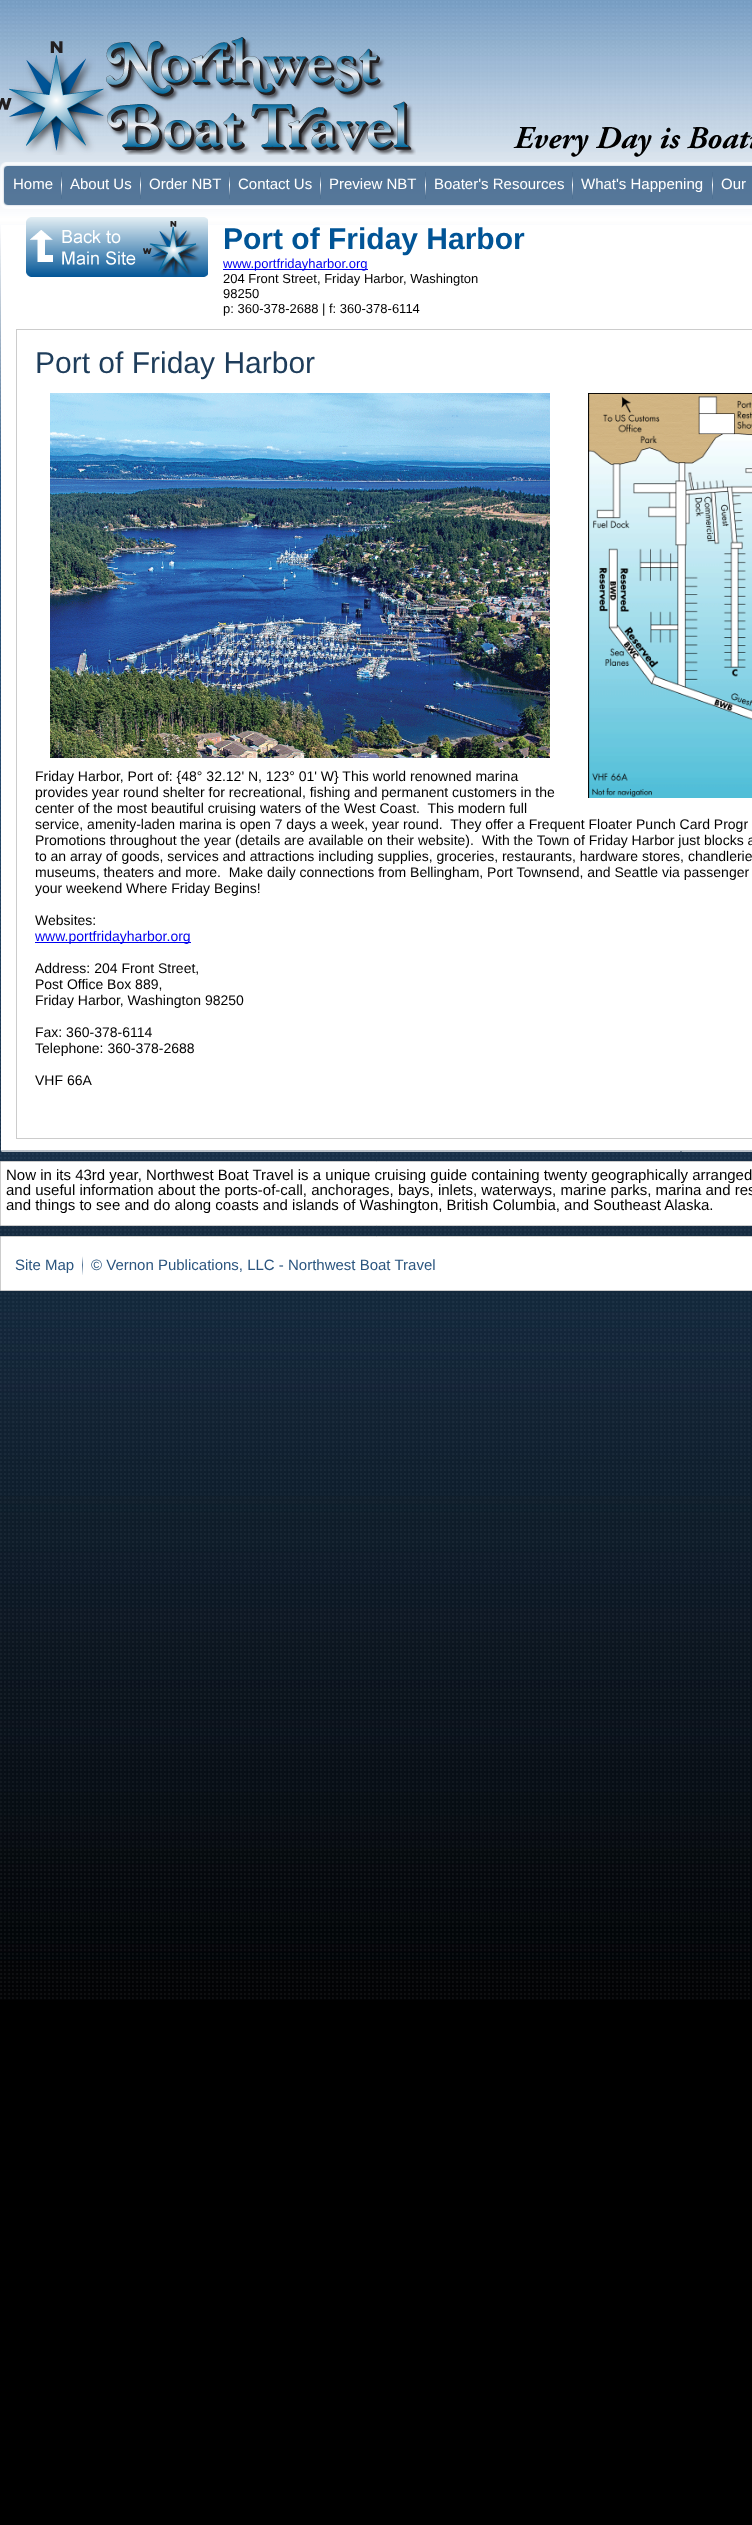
<!DOCTYPE html>
<meta charset="utf-8">
<style>body { margin: 0 } canvas { display: block }</style>
<canvas id="canvas" width="752" height="2525"></canvas>
<script type="module">
  const canvas = document.getElementById("canvas");
  const ctx = canvas.getContext("2d");
  ctx.miterLimit = 4;
  ctx.fontKerning = "normal";
  async function loadImage(src) {
    const img = new Image();
    img.src = src;
    await img.decode();
    return img;
  }

  ctx.fillStyle = "#000000";
  ctx.fillRect(0, 0, 752, 2525);
  ctx.drawImage(await loadImage("img1.png"), 0, 0, 752, 2000);
  ctx.drawImage(await loadImage("img2.png"), 0, 37, 416, 118);
  ctx.drawImage(await loadImage("img3.png"), 513, 127, 239, 30);
  ctx.drawImage(await loadImage("img4.png"), 0, 162, 752, 47);
  ctx.font = "15px Liberation Sans";
  ctx.fillStyle = "#ffffff";
  ctx.fillText("Home", 13, 189);
  ctx.drawImage(await loadImage("img5.png"), 61, 172, 1, 27);
  ctx.fillText("About Us", 70, 189);
  ctx.drawImage(await loadImage("img5.png"), 140, 172, 1, 27);
  ctx.fillText("Order NBT", 149, 189);
  ctx.drawImage(await loadImage("img5.png"), 229, 172, 1, 27);
  ctx.fillText("Contact Us", 238, 189);
  ctx.drawImage(await loadImage("img5.png"), 320, 172, 1, 27);
  ctx.fillText("Preview NBT", 329, 189);
  ctx.drawImage(await loadImage("img5.png"), 425, 172, 1, 27);
  ctx.fillText("Boater's Resources", 434, 189);
  ctx.drawImage(await loadImage("img5.png"), 572, 172, 1, 27);
  ctx.fillText("What's Happening", 581, 189);
  ctx.drawImage(await loadImage("img5.png"), 712, 172, 1, 27);
  ctx.fillText("Our", 721, 189);
  ctx.fillRect(1, 225, 751, 925);
  ctx.drawImage(await loadImage("img6.png"), 26, 217, 182, 60);
  ctx.font = "bold 30px Liberation Sans";
  ctx.fillStyle = "#005496";
  ctx.fillText("Port of Friday Harbor", 223, 249);
  ctx.fillStyle = "#0000ee";
  ctx.fillRect(223, 269, 145, 1);
  ctx.font = "13px Liberation Sans";
  ctx.fillText("www.portfridayharbor.org", 223, 268);
  ctx.fillStyle = "#000000";
  ctx.fillText("204 Front Street, Friday Harbor, Washington", 223, 283);
  ctx.fillText("98250", 223, 298);
  ctx.fillText("p: 360-378-2688 | f: 360-378-6114", 223, 313);
  ctx.strokeStyle = "#cccccc";
  ctx.strokeRect(16.5, 329.5, 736, 809);
  ctx.font = "30px Liberation Sans";
  ctx.fillStyle = "#1e3d5b";
  ctx.fillText("Port of Friday Harbor", 35, 373);
  ctx.drawImage(await loadImage("img7.png"), 50, 393, 500, 365);
  ctx.drawImage(await loadImage("img8.png"), 588, 393, 164, 405);
  ctx.font = "14px Liberation Sans";
  ctx.fillStyle = "#000000";
  ctx.fillText("Friday Harbor, Port of: {48° 32.12' N, 123° 01' W} This world renowned marina", 35, 781);
  ctx.fillText("provides year round shelter for recreational, fishing and permanent customers in the", 35, 797);
  ctx.fillText("center of the most beautiful cruising waters of the West Coast.  This modern full", 35, 813);
  ctx.fillText("service, amenity-laden marina is open 7 days a week, year round.  They offer a Frequent Floater Punch Card Progr", 35, 829);
  ctx.fillText("Promotions throughout the year (details are available on their website).  With the Town of Friday Harbor just blocks a", 35, 845);
  ctx.fillText("to an array of goods, services and attractions including supplies, groceries, restaurants, hardware stores, chandlerie", 35, 861);
  ctx.fillText("museums, theaters and more.  Make daily connections from Bellingham, Port Townsend, and Seattle via passenger", 35, 877);
  ctx.fillText("your weekend Where Friday Begins!", 35, 893);
  ctx.fillText("Websites:", 35, 925);
  ctx.fillStyle = "#0000ee";
  ctx.fillRect(35, 942, 156, 1);
  ctx.fillText("www.portfridayharbor.org", 35, 941);
  ctx.fillStyle = "#000000";
  ctx.fillText("Address: 204 Front Street,", 35, 973);
  ctx.fillText("Post Office Box 889,", 35, 989);
  ctx.fillText("Friday Harbor, Washington 98250", 35, 1005);
  ctx.fillText("Fax: 360-378-6114", 35, 1037);
  ctx.fillText("Telephone: 360-378-2688", 35, 1053);
  ctx.fillText("VHF 66A", 35, 1085);
  ctx.drawImage(await loadImage("img9.png"), 1, 1150, 751, 2);
  ctx.fillStyle = "#ffffff";
  ctx.beginPath();
  ctx.rect(0.5, 1161.5, 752, 64);
  ctx.fill();
  ctx.stroke();
  ctx.font = "15px Liberation Sans";
  ctx.fillStyle = "#000000";
  ctx.fillText("Now in its 43rd year, Northwest Boat Travel is a unique cruising guide containing twenty geographically arranged", 6, 1180);
  ctx.fillText("and useful information about the ports-of-call, anchorages, bays, inlets, waterways, marine parks, marina and res", 6, 1195);
  ctx.fillText("and things to see and do along coasts and islands of Washington, British Columbia, and Southeast Alaska.", 6, 1210);
  ctx.fillStyle = "#ffffff";
  ctx.beginPath();
  ctx.rect(0.5, 1236.5, 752, 54);
  ctx.fill();
  ctx.stroke();
  ctx.fillStyle = "#2b557f";
  ctx.fillText("Site Map", 15, 1270);
  ctx.drawImage(await loadImage("img10.png"), 82, 1256, 1, 19);
  ctx.fillText("© Vernon Publications, LLC - Northwest Boat Travel", 91, 1270);
</script>
